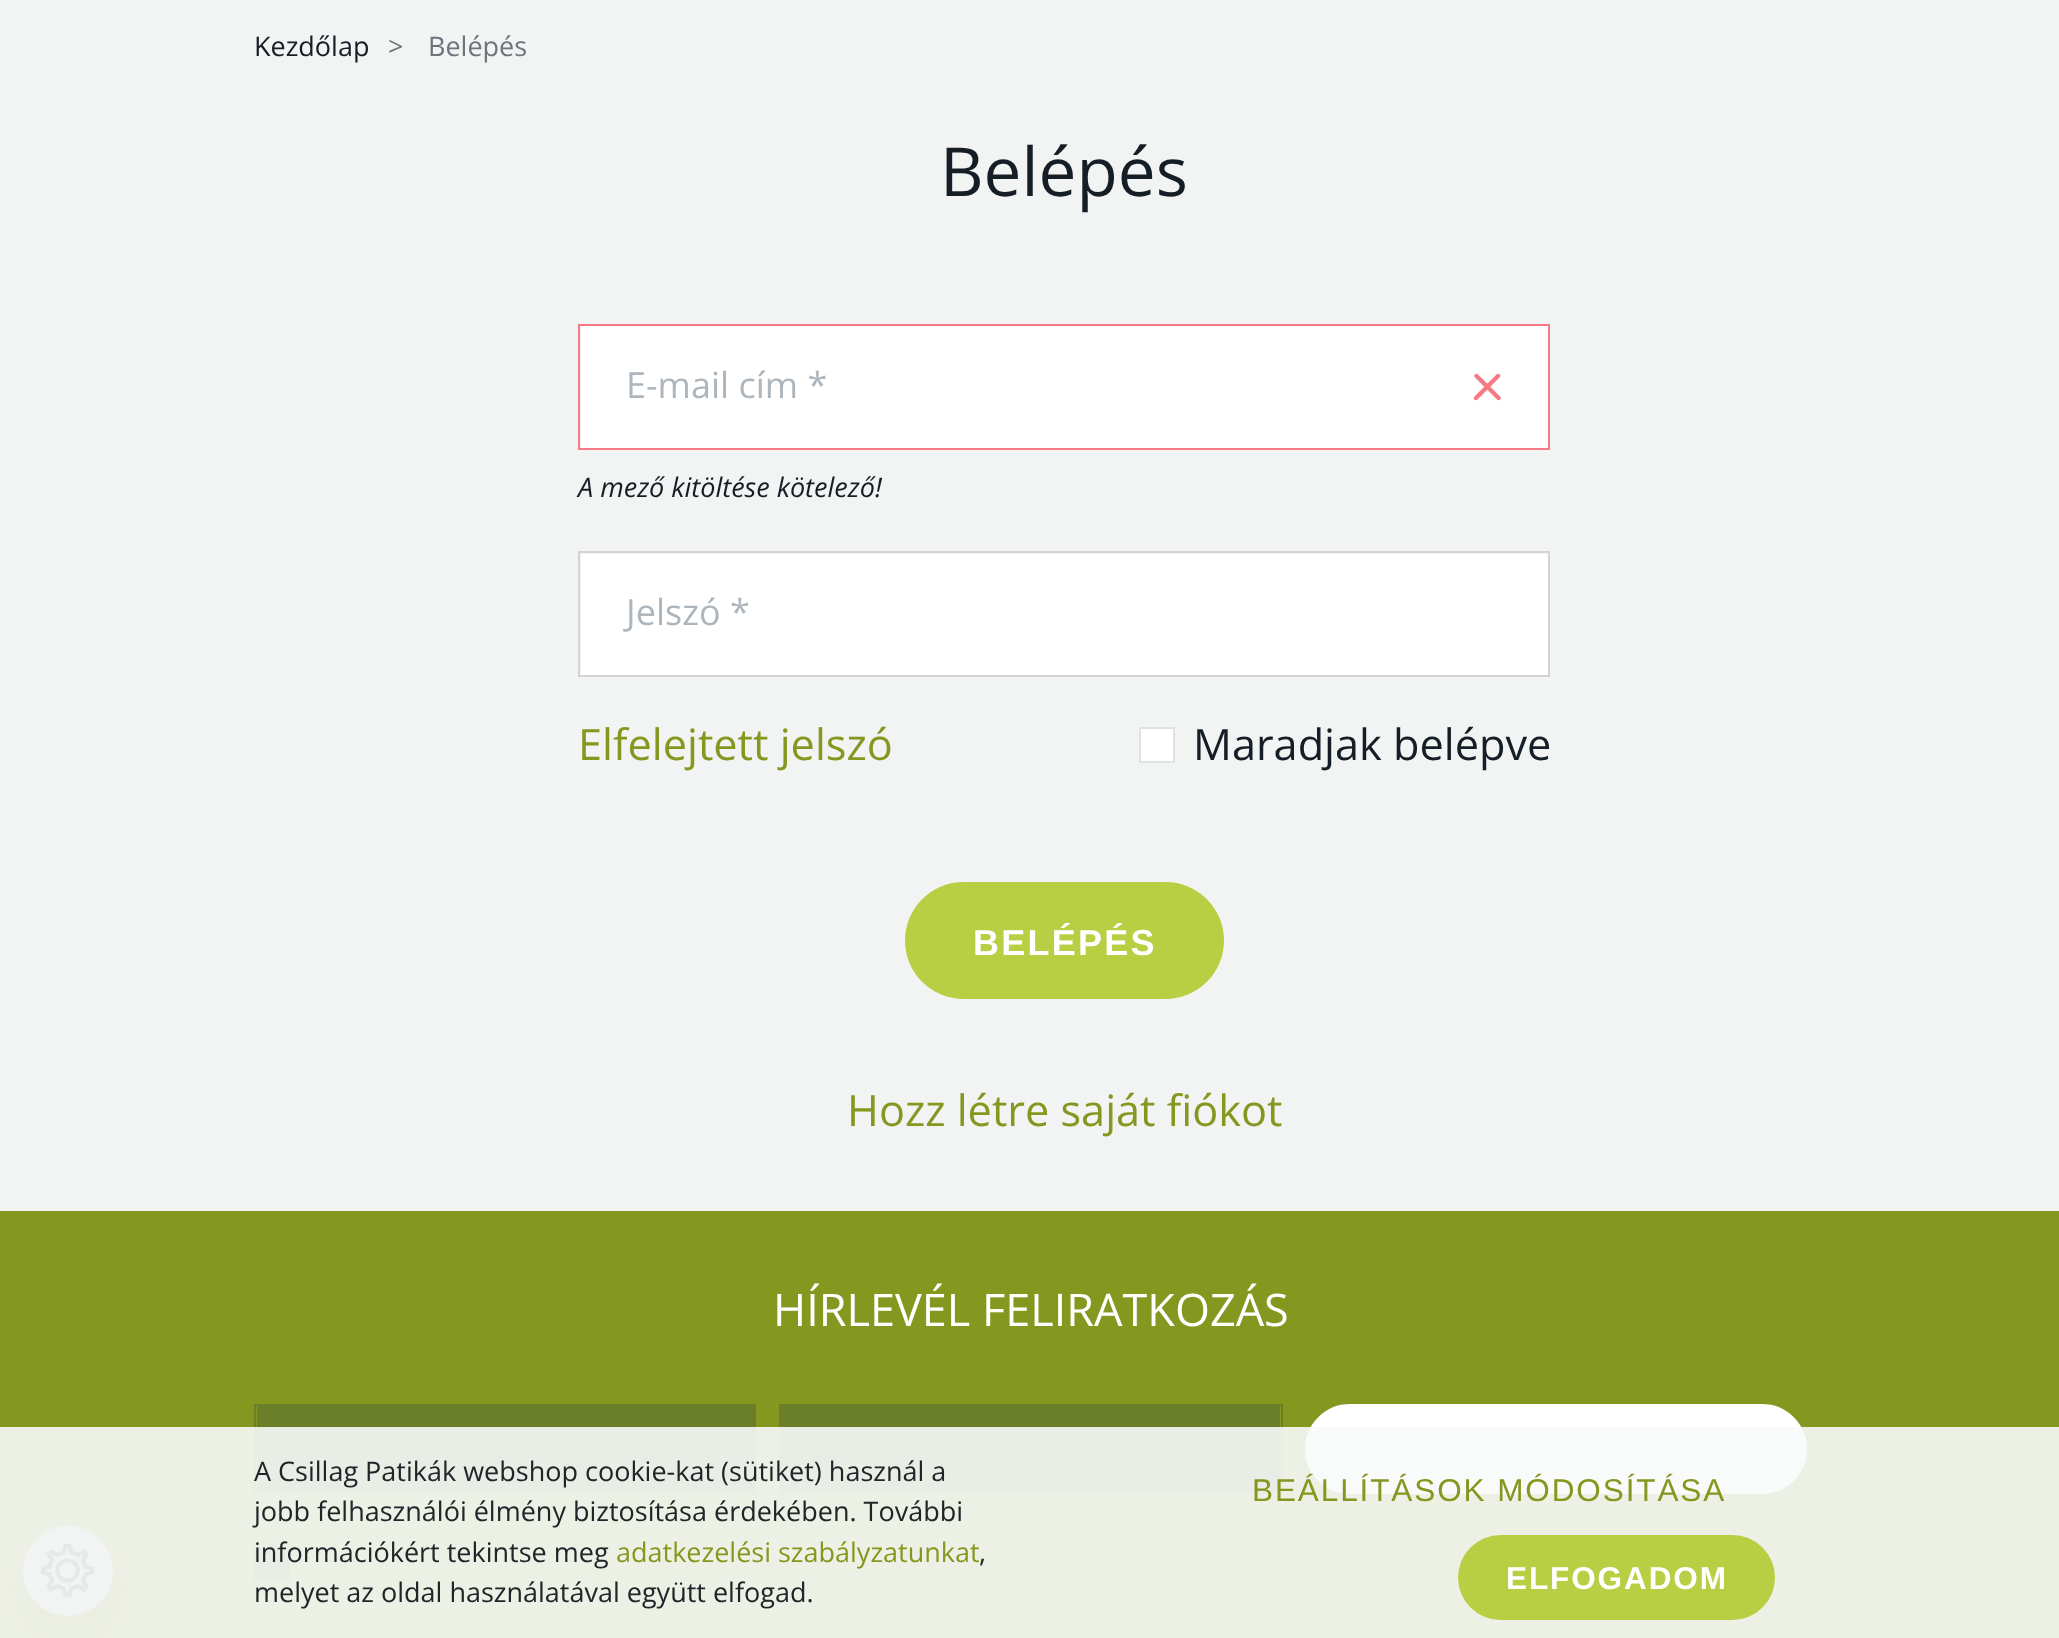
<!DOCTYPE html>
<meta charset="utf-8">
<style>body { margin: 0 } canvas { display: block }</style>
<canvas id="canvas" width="2059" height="1638"></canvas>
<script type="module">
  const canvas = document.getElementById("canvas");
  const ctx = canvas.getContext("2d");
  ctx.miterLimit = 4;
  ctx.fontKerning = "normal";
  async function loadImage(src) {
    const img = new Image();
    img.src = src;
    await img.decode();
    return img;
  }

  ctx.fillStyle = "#f2f3f3";
  ctx.fillRect(0, 0, 2059, 1638);
  ctx.font = "27px Open Sans";
  ctx.fillStyle = "#151e26";
  ctx.fillText("Kezdőlap", 254, 56);
  ctx.fillStyle = "#6c757d";
  ctx.fillText(">", 388, 56);
  ctx.fillText("Belépés", 428, 56);
  ctx.font = "67.5px Open Sans";
  ctx.fillStyle = "#151e26";
  ctx.fillText("Belépés", 940, 196);
  ctx.fillStyle = "#ffffff";
  ctx.fillRect(581, 326, 967, 122);
  ctx.strokeStyle = "#f77982";
  ctx.lineWidth = 2;
  ctx.strokeRect(579, 325, 970, 124);
  ctx.font = "36px Open Sans";
  ctx.fillStyle = "#adb5bd";
  ctx.fillText("E-mail cím *", 626, 398);
  ctx.drawImage(await loadImage("img1.png"), 1474, 374, 27, 27);
  ctx.font = "italic 27px Open Sans";
  ctx.fillStyle = "#151e26";
  ctx.fillText("A mező kitöltése kötelező!", 578, 497);
  ctx.fillStyle = "#ffffff";
  ctx.fillRect(581, 554, 967, 121);
  ctx.strokeStyle = "#d3d3d3";
  ctx.strokeRect(579, 552, 970, 124);
  ctx.font = "36px Open Sans";
  ctx.fillStyle = "#adb5bd";
  ctx.fillText("Jelszó *", 626, 625);
  ctx.font = "43.25px Open Sans";
  ctx.fillStyle = "#84981f";
  ctx.fillText("Elfelejtett jelszó", 578, 760);
  ctx.fillStyle = "#ffffff";
  ctx.beginPath();
  ctx.rect(1140, 728, 34, 34);
  ctx.fill();
  ctx.strokeStyle = "#dee2e6";
  ctx.stroke();
  ctx.fillStyle = "#151e26";
  ctx.fillText("Maradjak belépve", 1193, 760);
  ctx.fillStyle = "#b8cf43";
  ctx.beginPath();
  ctx.roundRect(905, 882, 319, 117, 58.5);
  ctx.fill();
  ctx.letterSpacing = "2.25px";
  ctx.font = "bold 36px Liberation Sans";
  ctx.fillStyle = "#ffffff";
  ctx.fillText("BELÉPÉS", 973, 955);
  ctx.letterSpacing = "0px";
  ctx.font = "43.25px Open Sans";
  ctx.fillStyle = "#84981f";
  ctx.fillText("Hozz létre saját fiókot", 847, 1126);
  ctx.fillRect(0, 1211, 2059, 427);
  ctx.font = "45px Open Sans";
  ctx.fillStyle = "#ffffff";
  ctx.fillText("HÍRLEVÉL FELIRATKOZÁS", 773, 1326);
  ctx.fillStyle = "#6b7f29";
  ctx.fillRect(257, 1406, 497, 86);
  ctx.strokeStyle = "#6b7f29";
  ctx.strokeRect(255, 1405, 500, 88);
  ctx.fillRect(781, 1406, 499, 86);
  ctx.strokeRect(780, 1405, 502, 88);
  ctx.fillStyle = "#ffffff";
  ctx.beginPath();
  ctx.roundRect(1306, 1405, 500, 88, 44);
  ctx.fill();
  ctx.strokeStyle = "#ffffff";
  ctx.stroke();
  ctx.fillStyle = "#6b7f29";
  ctx.fillRect(254, 1546, 36, 36);
  ctx.fillStyle = "rgba(0, 0, 0, 0.15)";
  ctx.filter = "blur(18px)";
  ctx.beginPath();
  ctx.roundRect(23, 1544, 90, 90, 45);
  ctx.fill();
  ctx.filter = "none";
  ctx.fillStyle = "#b8bcbe";
  ctx.beginPath();
  ctx.arc(68, 1571, 45, 0, Math.PI * 2);
  ctx.fill();
  ctx.drawImage(await loadImage("img2.png"), 41, 1544, 54, 54);
  ctx.fillStyle = "rgba(248, 249, 250, 0.9)";
  ctx.fillRect(0, 1427, 2059, 211);
  ctx.font = "27px Open Sans";
  ctx.fillStyle = "#212529";
  ctx.fillText("A Csillag Patikák webshop cookie-kat (sütiket) használ a", 254, 1481);
  ctx.fillText("jobb felhasználói élmény biztosítása érdekében. További", 254, 1521);
  ctx.fillText("információkért tekintse meg", 254, 1562);
  ctx.fillStyle = "#84981f";
  ctx.fillText("adatkezelési szabályzatunkat", 616, 1562);
  ctx.fillStyle = "#212529";
  ctx.fillText(",", 979, 1562);
  ctx.fillText("melyet az oldal használatával együtt elfogad.", 254, 1602);
  ctx.letterSpacing = "1.9px";
  ctx.font = "31.5px Liberation Sans";
  ctx.fillStyle = "#84981f";
  ctx.fillText("BEÁLLÍTÁSOK MÓDOSÍTÁSA", 1252, 1501);
  ctx.fillStyle = "#b8cf43";
  ctx.beginPath();
  ctx.roundRect(1458, 1535, 317, 85, 42.5);
  ctx.fill();
  ctx.font = "bold 31.5px Liberation Sans";
  ctx.fillStyle = "#ffffff";
  ctx.fillText("ELFOGADOM", 1506, 1589);
</script>
